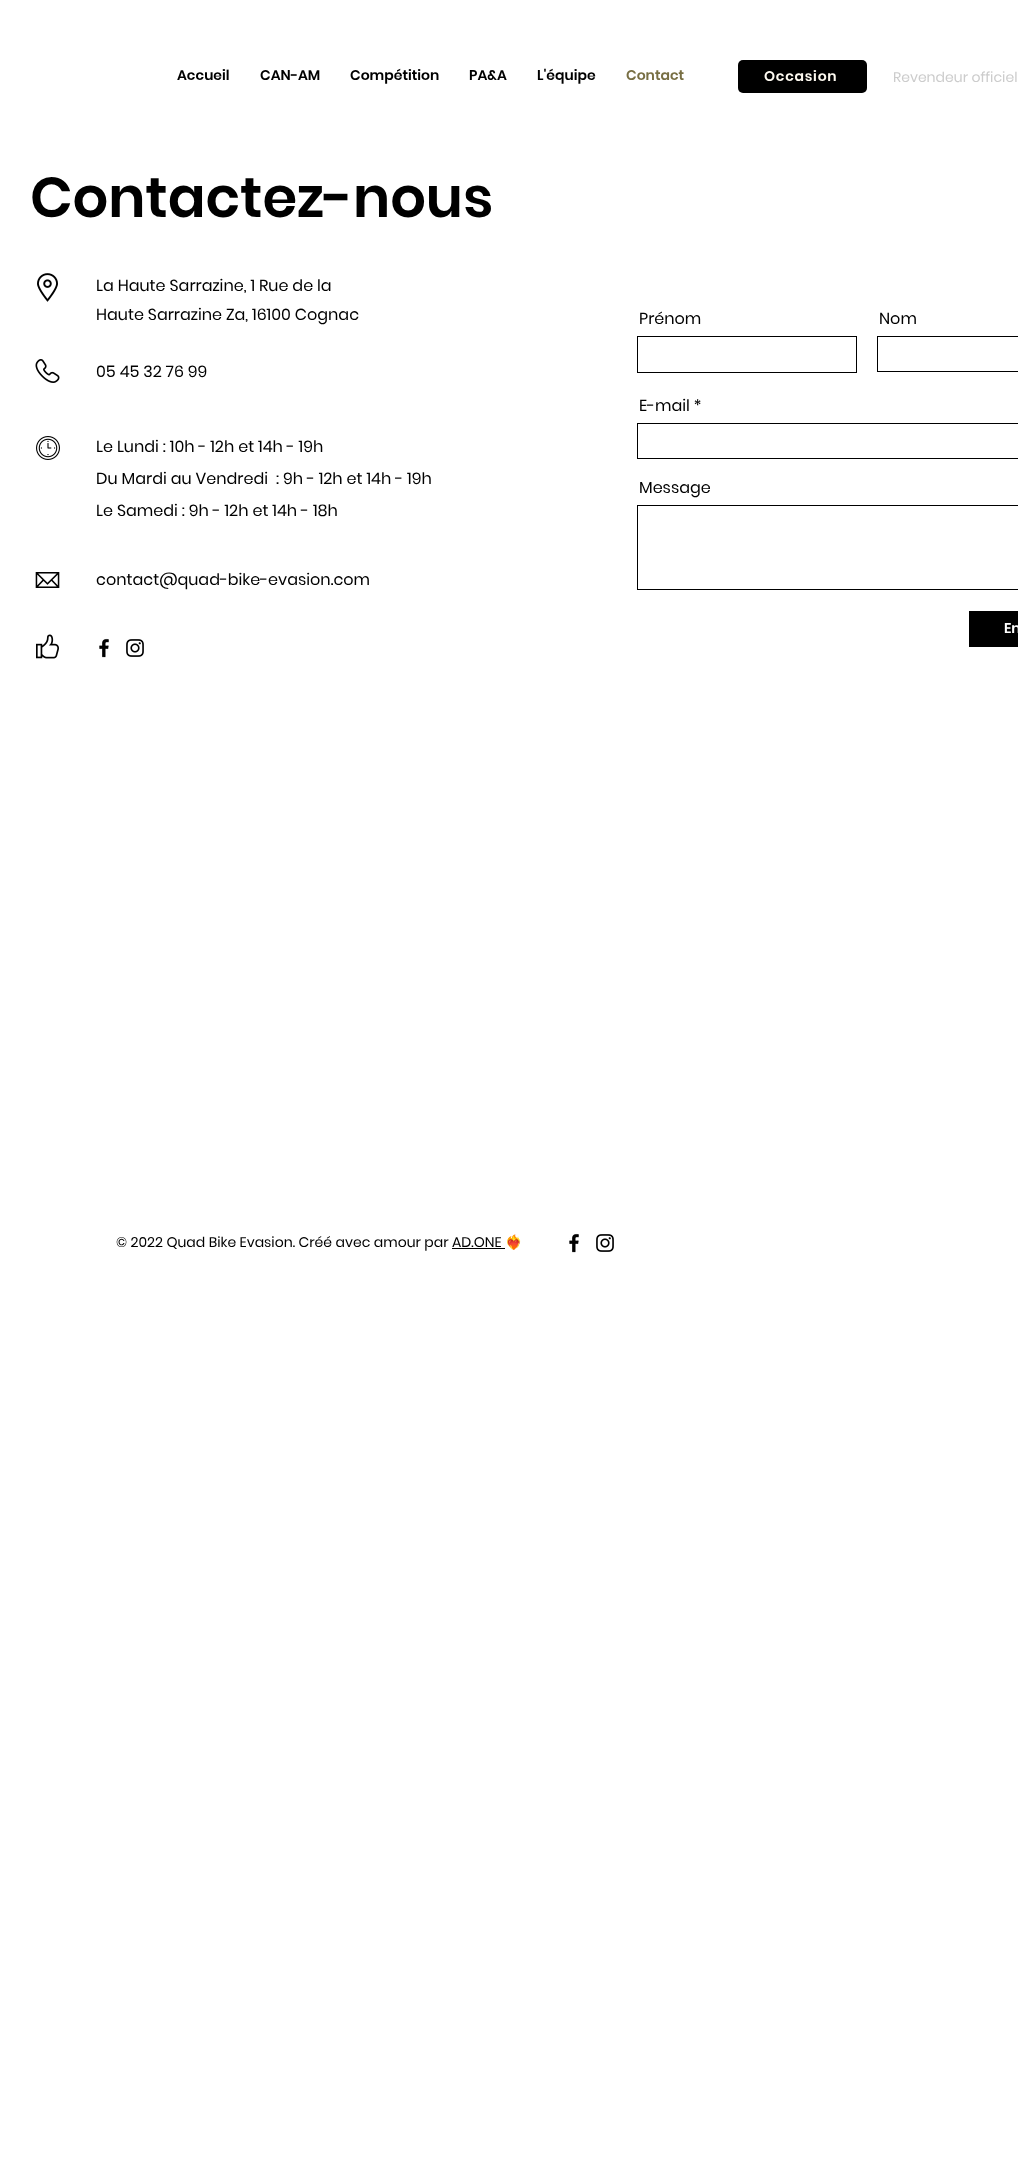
<!DOCTYPE html>
<meta charset="utf-8">
<style>body { margin: 0 } canvas { display: block }</style>
<canvas id="canvas" width="1018" height="2171"></canvas>
<script type="module">
  const canvas = document.getElementById("canvas");
  const ctx = canvas.getContext("2d");
  ctx.miterLimit = 4;
  ctx.fontKerning = "normal";
  async function loadImage(src) {
    const img = new Image();
    img.src = src;
    await img.decode();
    return img;
  }

  ctx.fillStyle = "#ffffff";
  ctx.fillRect(0, 0, 1018, 2171);
  ctx.font = "600 14px Poppins";
  ctx.fillStyle = "#000000";
  ctx.fillText("Accueil", 177, 80);
  ctx.fillText("CAN-AM", 260, 80);
  ctx.fillText("Compétition", 350, 80);
  ctx.fillText("PA&A", 469, 80);
  ctx.fillText("L'équipe", 537, 80);
  ctx.fillStyle = "#786f44";
  ctx.fillText("Contact", 626, 80);
  ctx.fillStyle = "#000000";
  ctx.beginPath();
  ctx.roundRect(738, 60, 129, 33, 5);
  ctx.fill();
  ctx.letterSpacing = "0.75px";
  ctx.fillStyle = "#fefaf1";
  ctx.fillText("Occasion", 764, 81);
  ctx.letterSpacing = "0px";
  ctx.font = "14px Poppins";
  ctx.fillStyle = "#cccccc";
  ctx.fillText("Revendeur officiel", 893, 82);
  ctx.font = "600 56px Poppins";
  ctx.fillStyle = "#000000";
  ctx.fillText("Contactez-nous", 30, 217);
  ctx.drawImage(await loadImage("img1.png"), 37, 273, 21, 29);
  ctx.font = "16px Poppins";
  ctx.fillText("La Haute Sarrazine, 1 Rue de la", 96, 291);
  ctx.fillText("Haute Sarrazine Za, 16100 Cognac", 96, 320);
  ctx.drawImage(await loadImage("img2.png"), 35, 359, 25, 24);
  ctx.fillText("05 45 32 76 99", 96, 377);
  ctx.drawImage(await loadImage("img3.png"), 36, 436, 24, 24);
  ctx.fillText("Le Lundi : 10h - 12h et 14h - 19h", 96, 452);
  ctx.fillText("Du Mardi au Vendredi  : 9h - 12h et 14h - 19h", 96, 484);
  ctx.fillText("Le Samedi : 9h - 12h et 14h - 18h", 96, 516);
  ctx.drawImage(await loadImage("img4.png"), 35, 572, 25, 16);
  ctx.fillText("contact@quad-bike-evasion.com", 96, 585);
  ctx.drawImage(await loadImage("img5.png"), 36, 634, 23, 25);
  ctx.drawImage(await loadImage("img6.png"), 99, 638, 10, 20);
  ctx.drawImage(await loadImage("img7.png"), 126, 639, 18, 18);
  ctx.fillText("Prénom", 639, 324);
  ctx.strokeStyle = "#000000";
  ctx.strokeRect(637.5, 336.5, 219, 36);
  ctx.fillText("Nom", 879, 324);
  ctx.strokeRect(877.5, 336.5, 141, 35);
  ctx.fillText("E-mail *", 639, 411);
  ctx.strokeRect(637.5, 423.5, 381, 35);
  ctx.fillText("Message", 639, 493);
  ctx.strokeRect(637.5, 505.5, 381, 84);
  ctx.fillRect(969, 611, 49, 36);
  ctx.font = "600 14px Poppins";
  ctx.fillStyle = "#ffffff";
  ctx.fillText("En", 1004, 633);
  ctx.font = "14px Poppins";
  ctx.fillStyle = "#000000";
  ctx.fillText("© 2022 Quad Bike Evasion. Créé avec amour par AD.ONE", 116, 1247);
  ctx.fillRect(452, 1248, 53, 1);
  ctx.font = "bold 14px Noto Color Emoji";
  ctx.fillText("❤️‍🔥", 505, 1247);
  ctx.drawImage(await loadImage("img6.png"), 569, 1233, 10, 20);
  ctx.drawImage(await loadImage("img7.png"), 596, 1234, 18, 18);
</script>
